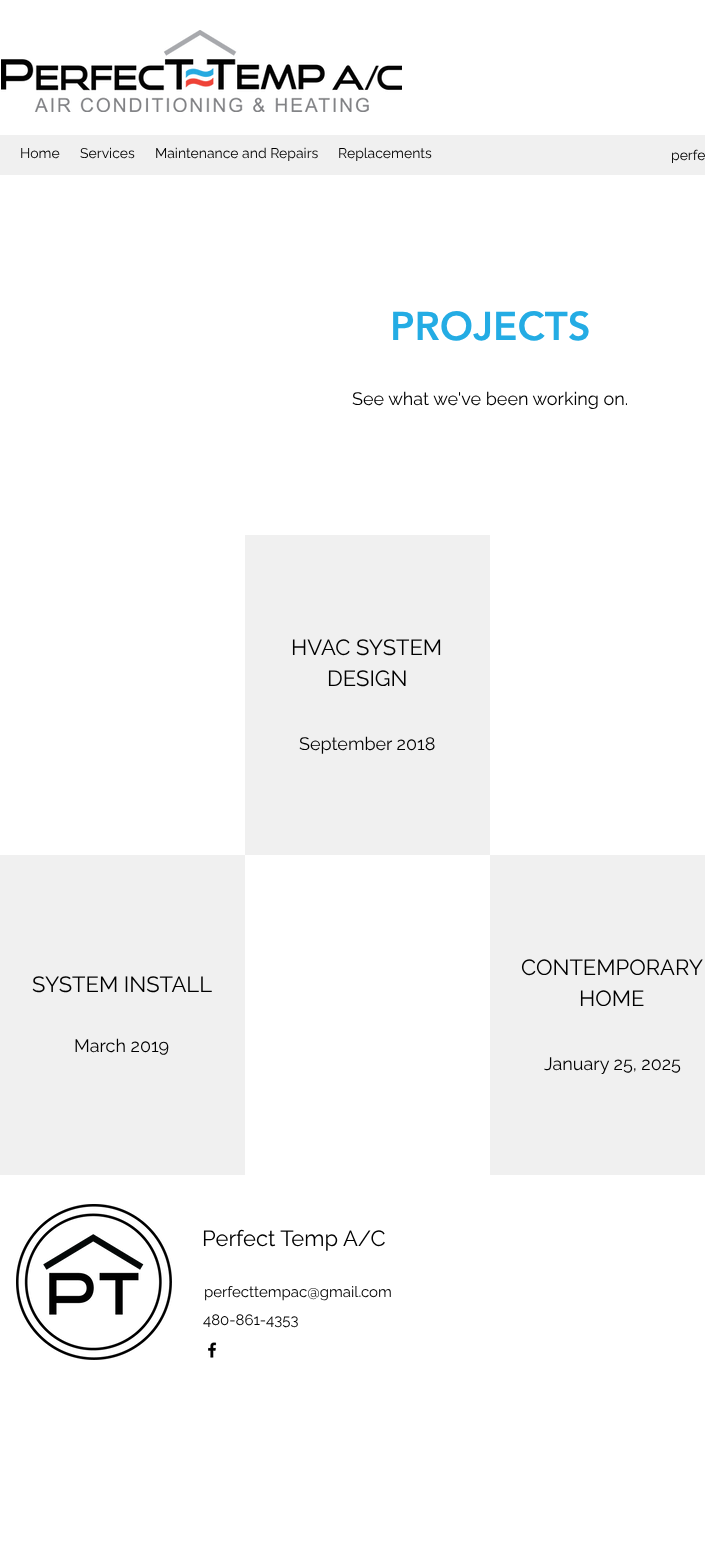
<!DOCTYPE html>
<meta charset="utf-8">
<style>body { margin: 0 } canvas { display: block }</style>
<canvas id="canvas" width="705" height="1554"></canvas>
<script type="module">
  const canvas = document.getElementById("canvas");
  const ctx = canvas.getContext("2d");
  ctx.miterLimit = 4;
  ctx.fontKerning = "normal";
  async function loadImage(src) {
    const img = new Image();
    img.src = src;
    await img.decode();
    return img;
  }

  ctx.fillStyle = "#ffffff";
  ctx.fillRect(0, 0, 705, 1554);
  ctx.drawImage(await loadImage("img1.png"), 1, 30, 401, 82);
  ctx.fillStyle = "#f0f0f0";
  ctx.fillRect(0, 135, 705, 40);
  ctx.font = "14px Raleway";
  ctx.fillStyle = "#000000";
  ctx.fillText("Home", 20, 158);
  ctx.fillText("Services", 80, 158);
  ctx.fillText("Maintenance and Repairs", 155, 158);
  ctx.fillText("Replacements", 338, 158);
  ctx.fillText("perfe", 671, 160);
  ctx.font = "900 40px 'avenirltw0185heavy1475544'";
  ctx.fillStyle = "#24ace4";
  ctx.fillText("PROJECTS", 390, 340);
  ctx.font = "18px Raleway";
  ctx.fillStyle = "#000000";
  ctx.fillText("See what we've been working on.", 352, 405);
  ctx.fillStyle = "#f0f0f0";
  ctx.fillRect(245, 535, 245, 320);
  ctx.font = "22px Raleway";
  ctx.fillStyle = "#000000";
  ctx.fillText("HVAC SYSTEM", 291, 655);
  ctx.fillText("DESIGN", 327, 686);
  ctx.font = "18px Raleway";
  ctx.fillText("September 2018", 299, 750);
  ctx.fillStyle = "#f0f0f0";
  ctx.fillRect(0, 855, 245, 320);
  ctx.font = "22px Raleway";
  ctx.fillStyle = "#000000";
  ctx.fillText("SYSTEM INSTALL", 32, 992);
  ctx.font = "18px Raleway";
  ctx.fillText("March 2019", 74, 1052);
  ctx.fillStyle = "#f0f0f0";
  ctx.fillRect(490, 855, 215, 320);
  ctx.font = "22px Raleway";
  ctx.fillStyle = "#000000";
  ctx.fillText("CONTEMPORARY", 521, 975);
  ctx.fillText("HOME", 579, 1006);
  ctx.font = "18px Raleway";
  ctx.fillText("January 25, 2025", 544, 1070);
  ctx.drawImage(await loadImage("img2.png"), 16, 1204, 156, 156);
  ctx.font = "22px Raleway";
  ctx.fillText("Perfect Temp A/C", 202, 1246);
  ctx.font = "15px Raleway";
  ctx.fillText("perfecttempac@gmail.com", 204, 1297);
  ctx.fillText("480-861-4353", 203, 1325);
  ctx.drawImage(await loadImage("img3.png"), 208, 1342, 9, 16);
</script>
